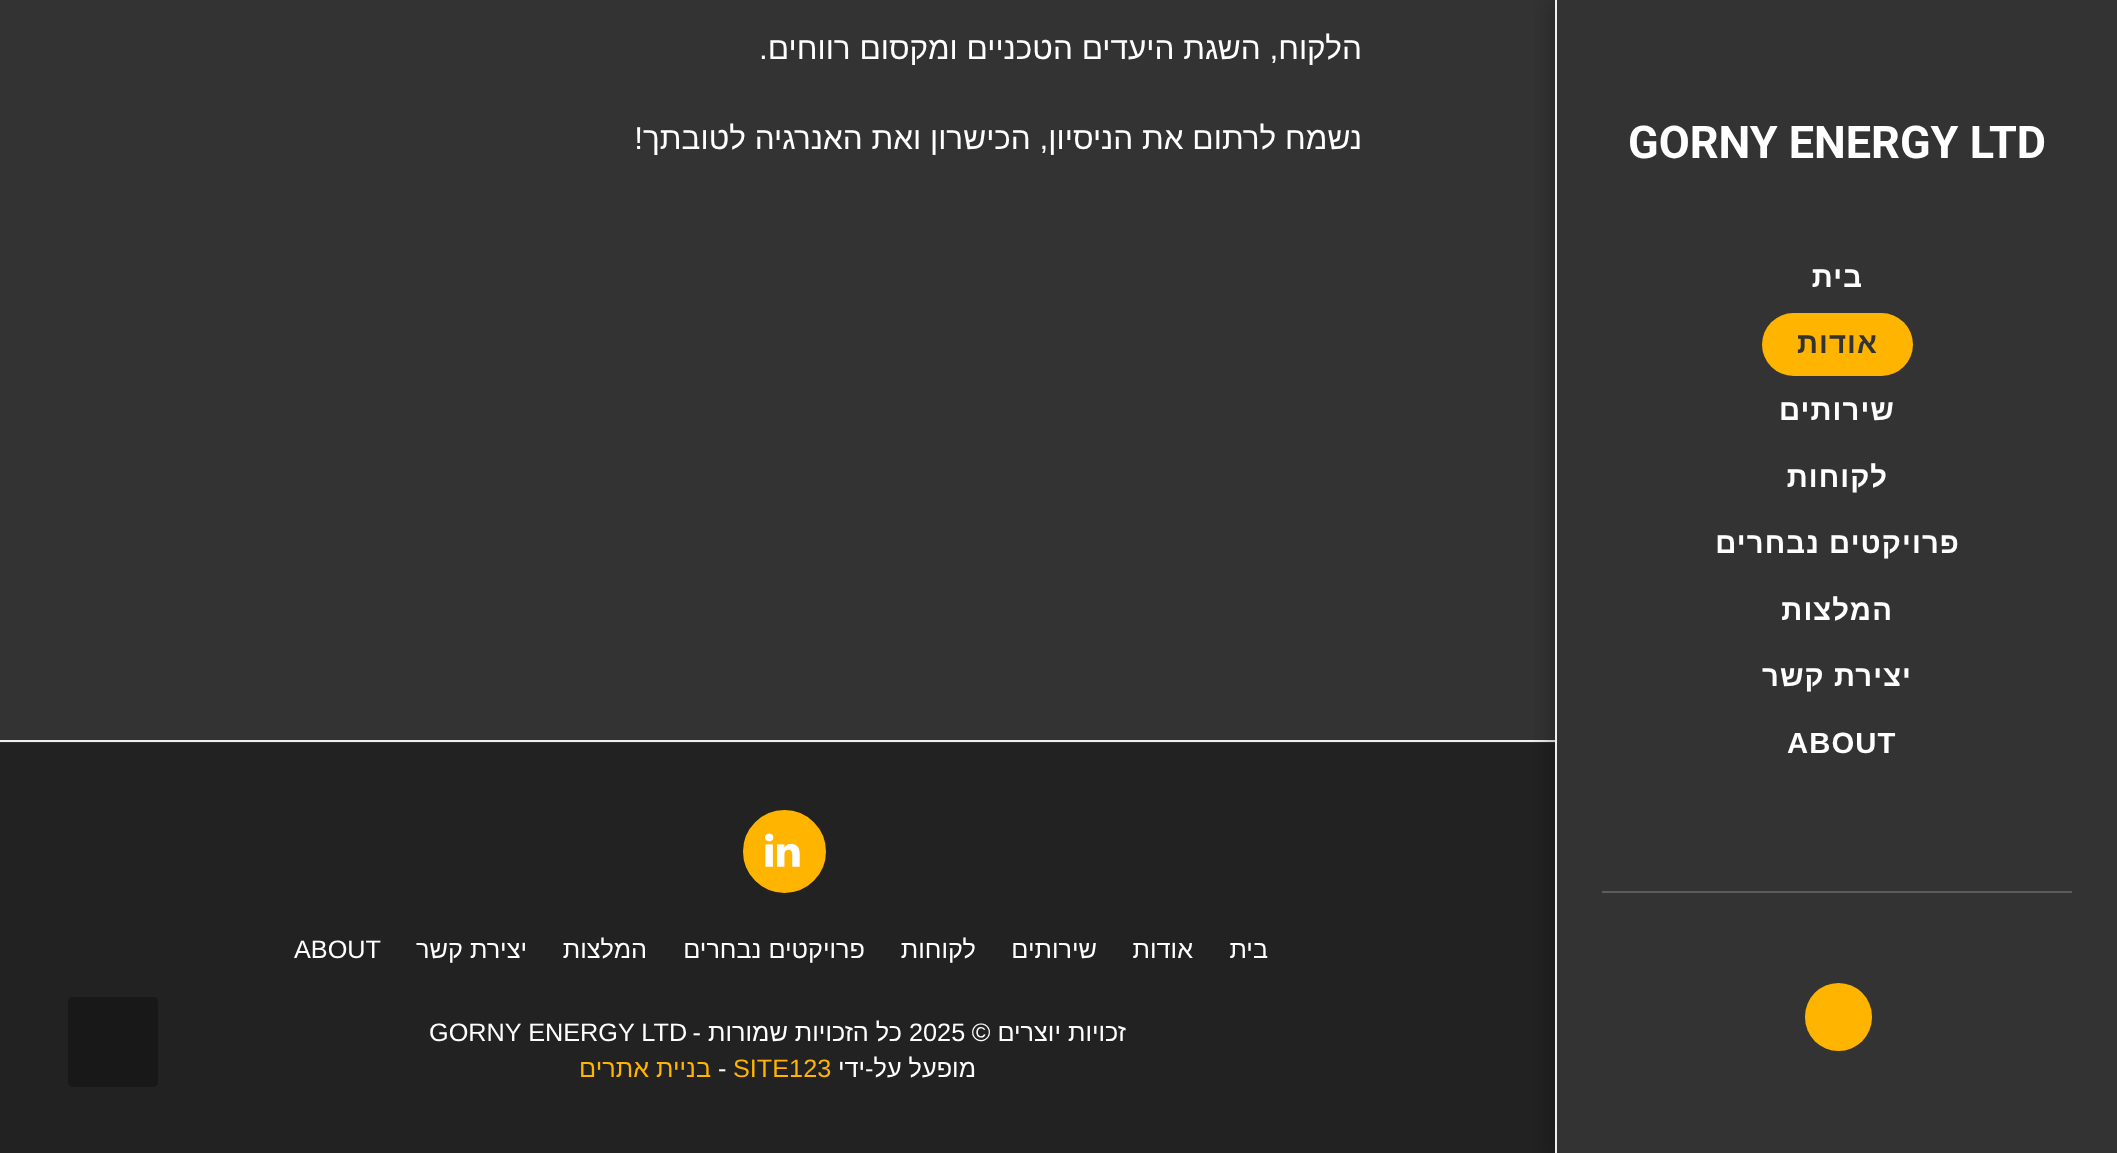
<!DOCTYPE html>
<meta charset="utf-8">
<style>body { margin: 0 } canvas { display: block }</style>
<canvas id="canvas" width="2117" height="1153"></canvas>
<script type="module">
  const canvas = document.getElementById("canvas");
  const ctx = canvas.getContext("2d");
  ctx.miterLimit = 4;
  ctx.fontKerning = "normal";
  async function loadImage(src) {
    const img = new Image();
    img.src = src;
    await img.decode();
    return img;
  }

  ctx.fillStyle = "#333333";
  ctx.fillRect(0, 0, 2117, 1153);
  ctx.fillStyle = "#f3eeee";
  ctx.fillRect(0, 740, 1555, 2);
  ctx.fillStyle = "#222222";
  ctx.fillRect(0, 743, 1555, 410);
  ctx.save();
  ctx.beginPath();
  ctx.rect(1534, 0, 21, 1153);
  ctx.clip();
  ctx.fillStyle = "rgba(0, 0, 0, 0.35)";
  ctx.filter = "blur(13.5px)";
  ctx.beginPath();
  ctx.rect(1555, -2, 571, 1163);
  ctx.fill();
  ctx.filter = "none";
  ctx.restore();
  ctx.fillStyle = "#f3eeee";
  ctx.fillRect(1555, 0, 2, 1153);
  ctx.font = "bold 45px Roboto";
  ctx.fillStyle = "#ffffff";
  ctx.fillText("GORNY ENERGY LTD", 1628, 158);
  ctx.letterSpacing = "1.1px";
  ctx.direction = "rtl";
  ctx.font = "bold 29.25px Liberation Sans";
  ctx.fillText("בית", 1863, 287);
  ctx.fillStyle = "#ffb400";
  ctx.beginPath();
  ctx.roundRect(1762, 313, 151, 63, 31.5);
  ctx.fill();
  ctx.fillStyle = "#333333";
  ctx.fillText("אודות", 1878, 353);
  ctx.fillStyle = "#ffffff";
  ctx.fillText("שירותים", 1895, 420);
  ctx.fillText("לקוחות", 1888, 487);
  ctx.fillText("פרויקטים נבחרים", 1960, 553);
  ctx.fillText("המלצות", 1893, 620);
  ctx.fillText("יצירת קשר", 1912, 686);
  ctx.direction = "ltr";
  ctx.fillText("ABOUT", 1787, 753);
  ctx.fillStyle = "#5c5c5c";
  ctx.fillRect(1602, 891, 470, 2);
  ctx.fillStyle = "#ffb400";
  ctx.beginPath();
  ctx.roundRect(1805, 983, 67, 68, 33.5);
  ctx.fill();
  ctx.letterSpacing = "0px";
  ctx.direction = "rtl";
  ctx.font = "31.5px Liberation Sans";
  ctx.fillStyle = "#ffffff";
  ctx.fillText("הלקוח, השגת היעדים הטכניים ומקסום רווחים.", 1362, 59);
  ctx.fillText("נשמח לרתום את הניסיון, הכישרון ואת האנרגיה לטובתך!", 1362, 149);
  ctx.fillStyle = "#ffb400";
  ctx.beginPath();
  ctx.arc(784.5, 851.5, 40.5, 0, Math.PI * 2);
  ctx.fill();
  ctx.strokeStyle = "#ffb400";
  ctx.lineWidth = 2;
  ctx.stroke();
  ctx.drawImage(await loadImage("img1.png"), 765, 833, 35, 34);
  ctx.font = "25.25px Liberation Sans";
  ctx.fillStyle = "#ffffff";
  ctx.fillText("בית", 1268, 958);
  ctx.fillText("אודות", 1193, 958);
  ctx.fillText("שירותים", 1097, 958);
  ctx.fillText("לקוחות", 976, 958);
  ctx.fillText("פרויקטים נבחרים", 865, 958);
  ctx.fillText("המלצות", 647, 958);
  ctx.fillText("יצירת קשר", 527, 958);
  ctx.direction = "ltr";
  ctx.fillText("ABOUT", 294, 958);
  ctx.direction = "rtl";
  ctx.fillText("זכויות יוצרים ©", 1126, 1041);
  ctx.direction = "ltr";
  ctx.fillText("2025", 909, 1041);
  ctx.direction = "rtl";
  ctx.fillText("כל הזכויות שמורות -", 902, 1041);
  ctx.direction = "ltr";
  ctx.fillText("GORNY ENERGY LTD", 429, 1041);
  ctx.direction = "rtl";
  ctx.fillText("מופעל על-ידי", 976, 1077);
  ctx.direction = "ltr";
  ctx.fillStyle = "#ffb400";
  ctx.fillText("SITE123", 733, 1077);
  ctx.fillStyle = "#ffffff";
  ctx.fillText("-", 718, 1077);
  ctx.direction = "rtl";
  ctx.fillStyle = "#ffb400";
  ctx.fillText("בניית אתרים", 711, 1077);
  ctx.fillStyle = "#181818";
  ctx.beginPath();
  ctx.roundRect(68, 997, 90, 90, 5);
  ctx.fill();
</script>
